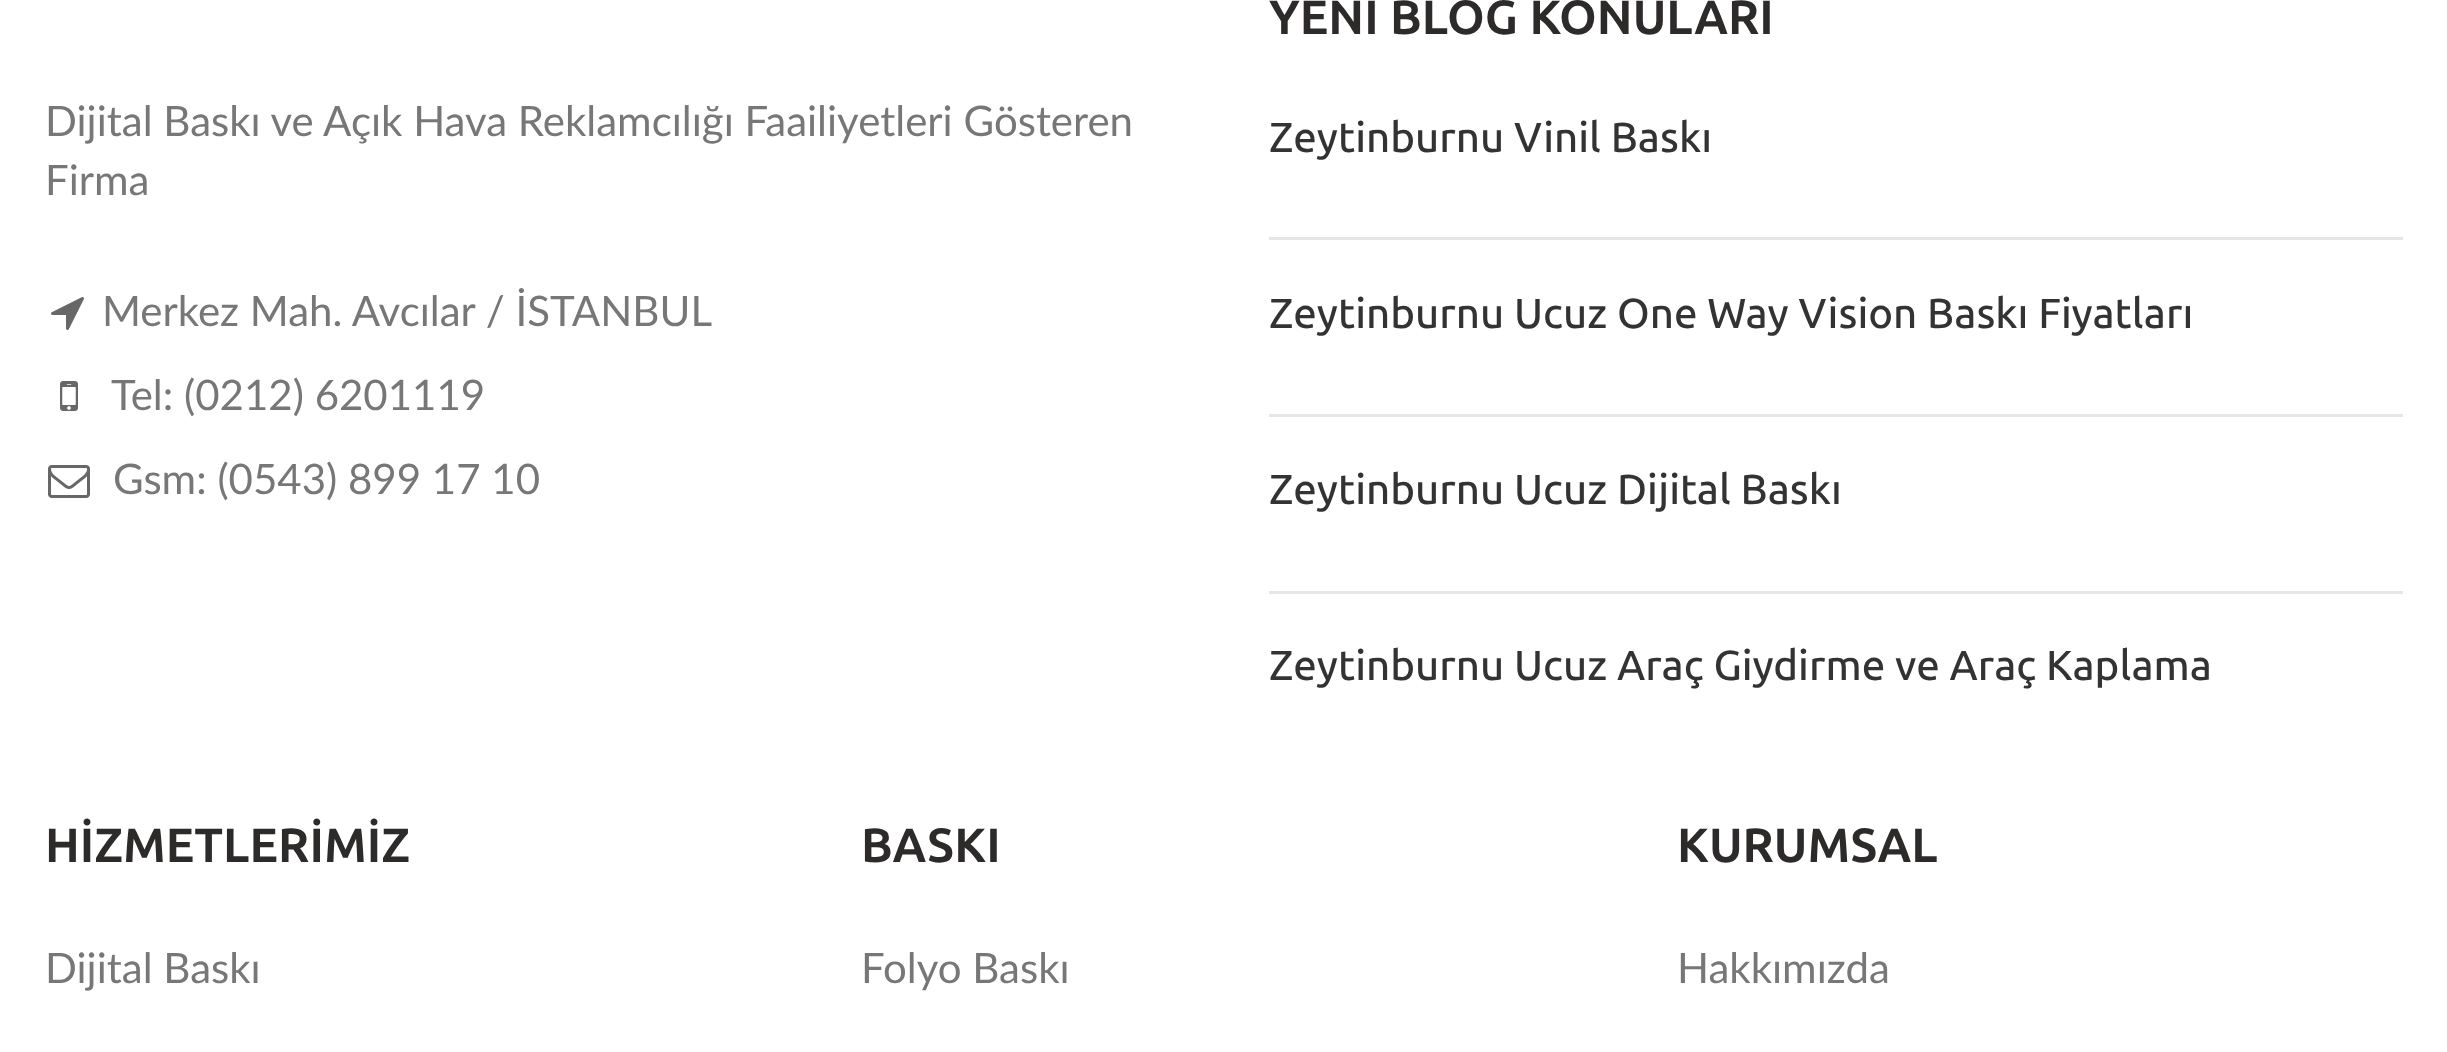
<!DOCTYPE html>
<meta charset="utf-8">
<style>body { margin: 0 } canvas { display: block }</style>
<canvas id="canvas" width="2447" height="1052"></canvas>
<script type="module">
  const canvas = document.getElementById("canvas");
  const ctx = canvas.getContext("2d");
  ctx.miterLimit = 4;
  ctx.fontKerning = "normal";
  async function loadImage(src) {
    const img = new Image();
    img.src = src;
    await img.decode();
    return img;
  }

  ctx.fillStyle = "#ffffff";
  ctx.fillRect(0, 0, 2447, 1052);
  ctx.font = "42px Lato";
  ctx.fillStyle = "#777777";
  ctx.fillText("Dijital Baskı ve Açık Hava Reklamcılığı Faailiyetleri Gösteren", 45, 136);
  ctx.fillText("Firma", 45, 195);
  ctx.drawImage(await loadImage("img1.png"), 51, 297, 33, 33);
  ctx.fillText("Merkez Mah. Avcılar / İSTANBUL", 102, 326);
  ctx.drawImage(await loadImage("img2.png"), 60, 381, 18, 30);
  ctx.fillText("Tel: (0212) 6201119", 111, 410);
  ctx.drawImage(await loadImage("img3.png"), 48, 465, 42, 33);
  ctx.fillText("Gsm: (0543) 899 17 10", 113, 494);
  ctx.font = "bold 48px Ubuntu";
  ctx.fillStyle = "#2d2a2a";
  ctx.fillText("YENİ BLOG KONULARI", 1269, 34);
  ctx.fillStyle = "#e6e6e6";
  ctx.fillRect(1269, 237, 1134, 3);
  ctx.font = "500 42px Ubuntu";
  ctx.fillStyle = "#333333";
  ctx.fillText("Zeytinburnu Vinil Baskı", 1269, 152);
  ctx.fillStyle = "#e6e6e6";
  ctx.fillRect(1269, 414, 1134, 3);
  ctx.fillStyle = "#333333";
  ctx.fillText("Zeytinburnu Ucuz One Way Vision Baskı Fiyatları", 1269, 328);
  ctx.fillStyle = "#e6e6e6";
  ctx.fillRect(1269, 591, 1134, 3);
  ctx.fillStyle = "#333333";
  ctx.fillText("Zeytinburnu Ucuz Dijital Baskı", 1269, 504);
  ctx.fillText("Zeytinburnu Ucuz Araç Giydirme ve Araç Kaplama", 1269, 680);
  ctx.font = "bold 48px Ubuntu";
  ctx.fillStyle = "#2d2a2a";
  ctx.fillText("HİZMETLERİMİZ", 45, 862);
  ctx.font = "42px Lato";
  ctx.fillStyle = "#777777";
  ctx.fillText("Dijital Baskı", 45, 983);
  ctx.font = "bold 48px Ubuntu";
  ctx.fillStyle = "#2d2a2a";
  ctx.fillText("BASKI", 861, 862);
  ctx.font = "42px Lato";
  ctx.fillStyle = "#777777";
  ctx.fillText("Folyo Baskı", 861, 983);
  ctx.font = "bold 48px Ubuntu";
  ctx.fillStyle = "#2d2a2a";
  ctx.fillText("KURUMSAL", 1677, 862);
  ctx.font = "42px Lato";
  ctx.fillStyle = "#777777";
  ctx.fillText("Hakkımızda", 1677, 983);
</script>
